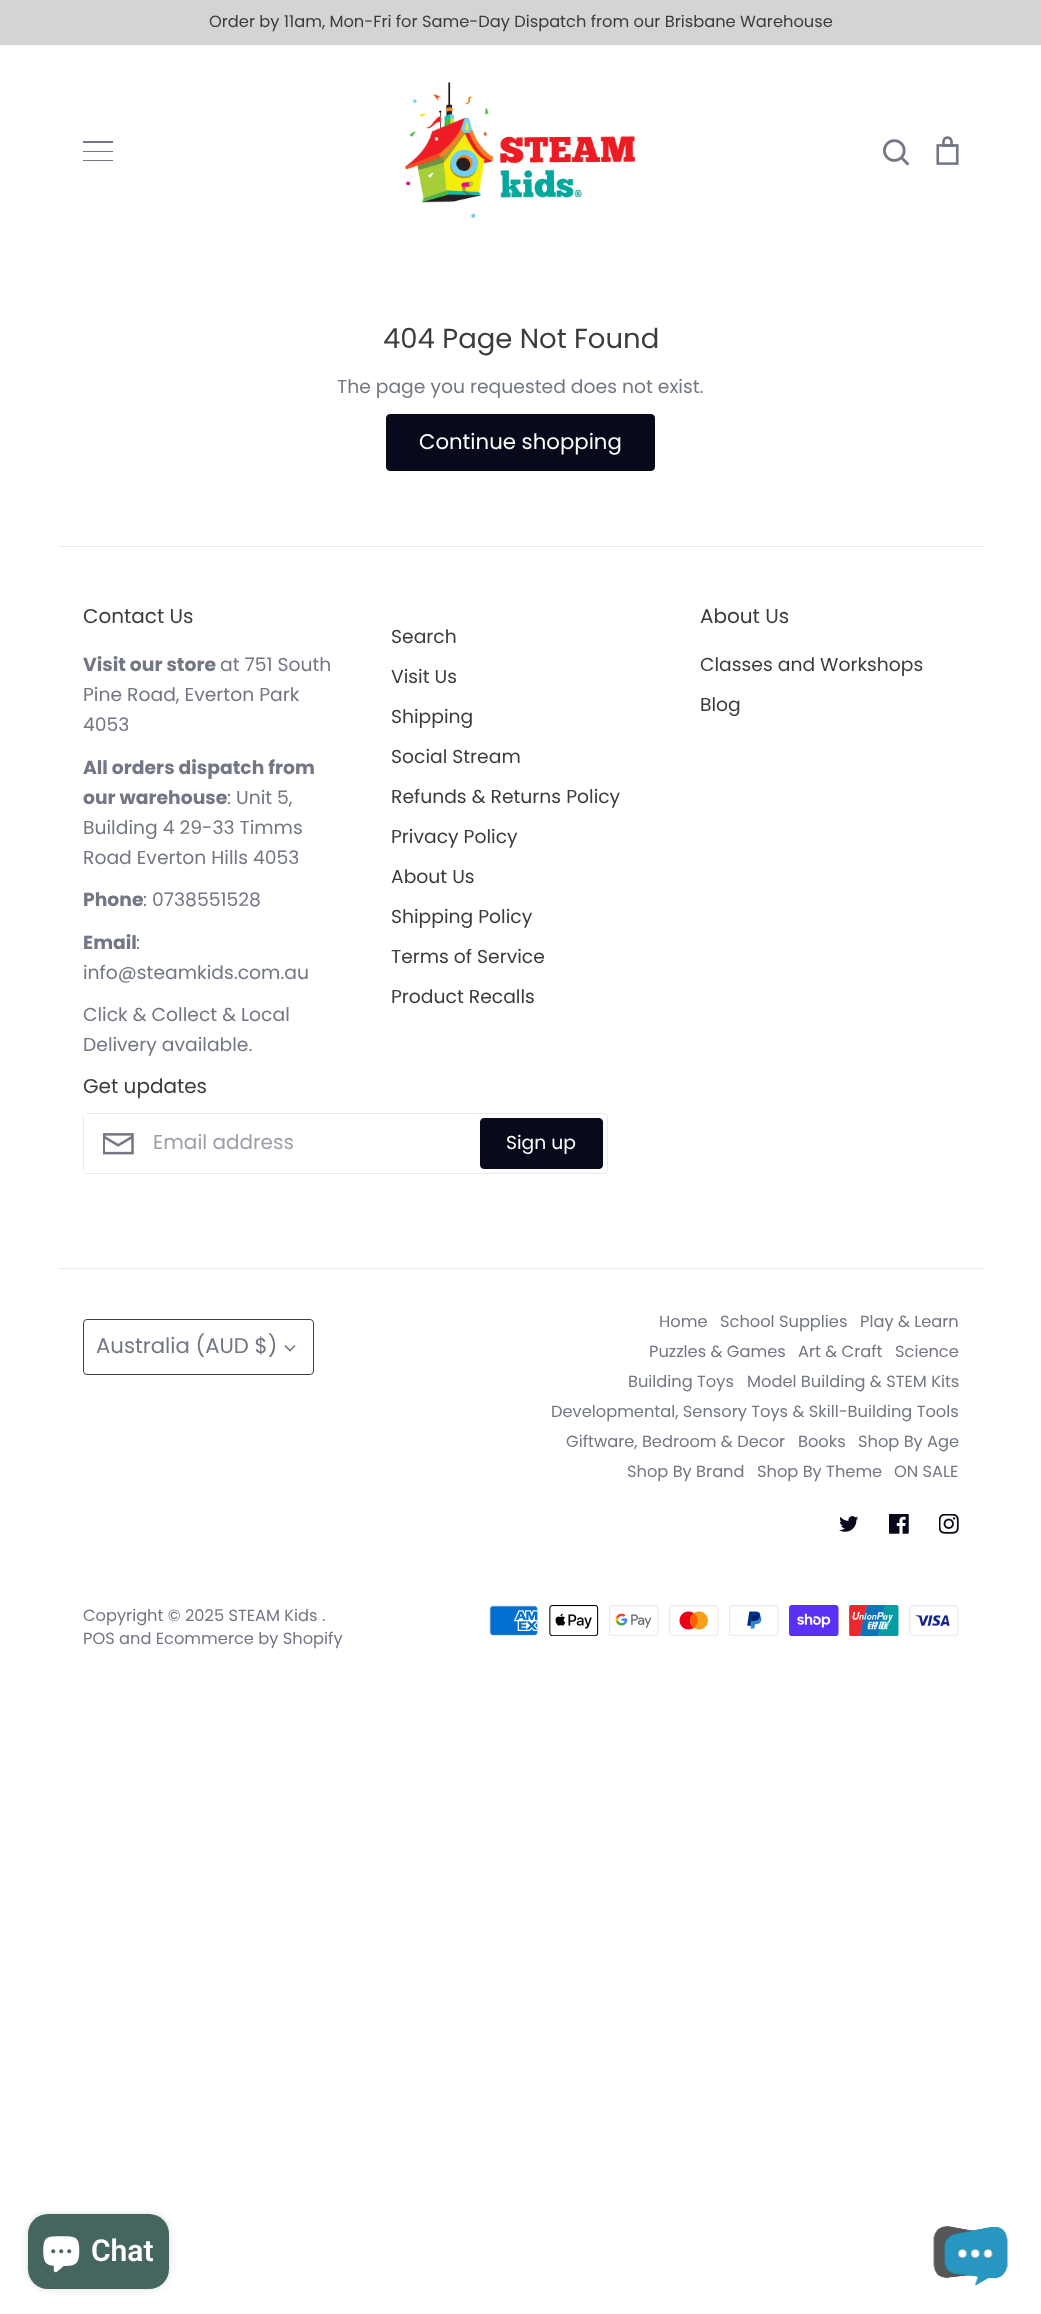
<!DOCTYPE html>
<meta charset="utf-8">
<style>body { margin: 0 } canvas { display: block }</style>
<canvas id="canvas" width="1041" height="2314"></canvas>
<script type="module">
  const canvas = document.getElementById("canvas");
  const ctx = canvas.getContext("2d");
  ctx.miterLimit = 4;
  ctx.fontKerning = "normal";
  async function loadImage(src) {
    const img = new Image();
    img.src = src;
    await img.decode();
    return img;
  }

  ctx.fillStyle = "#ffffff";
  ctx.fillRect(0, 0, 1041, 2314);
  ctx.fillStyle = "#d4d4d4";
  ctx.fillRect(0, 0, 1041, 45);
  ctx.font = "16.25px Poppins";
  ctx.fillStyle = "#3c3c3c";
  ctx.fillText("Order by 11am, Mon-Fri for Same-Day Dispatch from our Brisbane Warehouse", 209, 27);
  ctx.fillStyle = "#727685";
  ctx.fillRect(83, 141, 30, 2);
  ctx.fillRect(83, 151, 30, 1);
  ctx.fillRect(83, 160, 30, 1);
  ctx.drawImage(await loadImage("img1.png"), 405, 82, 236, 137);
  ctx.drawImage(await loadImage("img2.png"), 883, 139, 27, 27);
  ctx.drawImage(await loadImage("img3.png"), 936, 136, 23, 29);
  ctx.font = "27.5px Poppins";
  ctx.fillStyle = "#3c3c3c";
  ctx.fillText("404 Page Not Found", 383, 348);
  ctx.font = "18.75px Poppins";
  ctx.fillStyle = "#727685";
  ctx.fillText("The page you requested does not exist.", 337, 393);
  ctx.fillStyle = "#080a1c";
  ctx.beginPath();
  ctx.roundRect(386.5, 414.5, 268, 56, 3.5);
  ctx.fill();
  ctx.strokeStyle = "#080a1c";
  ctx.stroke();
  ctx.font = "21.25px Poppins";
  ctx.fillStyle = "#ffffff";
  ctx.fillText("Continue shopping", 419, 449);
  ctx.fillStyle = "#eaeaed";
  ctx.fillRect(58, 546, 926, 1);
  ctx.fillRect(58, 1268, 926, 1);
  ctx.font = "20px Poppins";
  ctx.fillStyle = "#3c3c3c";
  ctx.fillText("Contact Us", 83, 623);
  ctx.font = "bold 18.75px Poppins";
  ctx.fillStyle = "#727685";
  ctx.fillText("Visit our store", 83, 671);
  ctx.font = "18.75px Poppins";
  ctx.fillText("at 751 South", 220, 671);
  ctx.fillText("Pine Road, Everton Park", 83, 701);
  ctx.fillText("4053", 83, 731);
  ctx.font = "bold 18.75px Poppins";
  ctx.fillText("All orders dispatch from", 83, 774);
  ctx.fillText("our warehouse", 83, 804);
  ctx.font = "18.75px Poppins";
  ctx.fillText(": Unit 5,", 227, 804);
  ctx.fillText("Building 4 29-33 Timms", 83, 834);
  ctx.fillText("Road Everton Hills 4053", 83, 864);
  ctx.font = "bold 18.75px Poppins";
  ctx.fillText("Phone", 83, 906);
  ctx.font = "18.75px Poppins";
  ctx.fillText(": 0738551528", 143, 906);
  ctx.font = "bold 18.75px Poppins";
  ctx.fillText("Email", 83, 949);
  ctx.font = "18.75px Poppins";
  ctx.fillText(":", 136, 949);
  ctx.fillText("info@steamkids.com.au", 83, 979);
  ctx.fillText("Click & Collect & Local", 83, 1021);
  ctx.fillText("Delivery available.", 83, 1051);
  ctx.fillStyle = "#3c3c3c";
  ctx.fillText("Search", 391, 643);
  ctx.fillText("Visit Us", 391, 683);
  ctx.fillText("Shipping", 391, 723);
  ctx.fillText("Social Stream", 391, 763);
  ctx.fillText("Refunds & Returns Policy", 391, 803);
  ctx.fillText("Privacy Policy", 391, 843);
  ctx.fillText("About Us", 391, 883);
  ctx.fillText("Shipping Policy", 391, 923);
  ctx.fillText("Terms of Service", 391, 963);
  ctx.fillText("Product Recalls", 391, 1003);
  ctx.font = "20px Poppins";
  ctx.fillText("About Us", 700, 623);
  ctx.font = "18.75px Poppins";
  ctx.fillText("Classes and Workshops", 700, 671);
  ctx.fillText("Blog", 700, 711);
  ctx.font = "20px Poppins";
  ctx.fillText("Get updates", 83, 1093);
  ctx.beginPath();
  ctx.roundRect(83.5, 1113.5, 524, 60, 3.5);
  ctx.strokeStyle = "#eaeaed";
  ctx.stroke();
  ctx.drawImage(await loadImage("img4.png"), 103, 1133, 31, 22);
  ctx.fillStyle = "#ffffff";
  ctx.fillRect(84, 1114, 2, 59);
  ctx.fillStyle = "#9c9faa";
  ctx.fillText("Email address", 153, 1149);
  ctx.fillStyle = "#080a1c";
  ctx.beginPath();
  ctx.roundRect(480.5, 1118.5, 122, 50, 3.5);
  ctx.fill();
  ctx.strokeStyle = "#080a1c";
  ctx.stroke();
  ctx.font = "18.75px Poppins";
  ctx.fillStyle = "#ffffff";
  ctx.fillText("Sign up", 506, 1149);
  ctx.beginPath();
  ctx.roundRect(83.5, 1319.5, 230, 55, 3.5);
  ctx.strokeStyle = "#404040";
  ctx.stroke();
  ctx.font = "21.25px Poppins";
  ctx.fillStyle = "#727685";
  ctx.fillText("Australia (AUD $)", 96, 1353);
  ctx.beginPath();
  ctx.moveTo(285, 1345.5);
  ctx.lineTo(290, 1350.5);
  ctx.lineTo(295, 1345.5);
  ctx.strokeStyle = "#727685";
  ctx.lineWidth = 1.7;
  ctx.stroke();
  ctx.font = "16.25px Poppins";
  ctx.fillText("Home", 659, 1327);
  ctx.fillText("School Supplies", 720, 1327);
  ctx.fillText("Play & Learn", 860, 1327);
  ctx.fillText("Puzzles & Games", 649, 1357);
  ctx.fillText("Art & Craft", 798, 1357);
  ctx.fillText("Science", 895, 1357);
  ctx.fillText("Building Toys", 628, 1387);
  ctx.fillText("Model Building & STEM Kits", 747, 1387);
  ctx.fillText("Developmental, Sensory Toys & Skill-Building Tools", 551, 1417);
  ctx.fillText("Giftware, Bedroom & Decor", 566, 1447);
  ctx.fillText("Books", 798, 1447);
  ctx.fillText("Shop By Age", 858, 1447);
  ctx.fillText("Shop By Brand", 627, 1477);
  ctx.fillText("Shop By Theme", 757, 1477);
  ctx.fillText("ON SALE", 894, 1477);
  ctx.drawImage(await loadImage("img5.png"), 839, 1516, 20, 16);
  ctx.drawImage(await loadImage("img6.png"), 889, 1514, 20, 20);
  ctx.drawImage(await loadImage("img7.png"), 939, 1514, 20, 20);
  ctx.fillText("Copyright © 2025 STEAM Kids .", 83, 1621);
  ctx.fillText("POS and Ecommerce by Shopify", 83, 1644);
  ctx.drawImage(await loadImage("img8.png"), 489, 1605, 50, 31);
  ctx.drawImage(await loadImage("img9.png"), 549, 1605, 50, 31);
  ctx.drawImage(await loadImage("img10.png"), 609, 1605, 50, 31);
  ctx.drawImage(await loadImage("img11.png"), 669, 1605, 50, 31);
  ctx.drawImage(await loadImage("img12.png"), 729, 1605, 50, 31);
  ctx.drawImage(await loadImage("img13.png"), 789, 1605, 50, 31);
  ctx.drawImage(await loadImage("img14.png"), 849, 1605, 50, 31);
  ctx.drawImage(await loadImage("img15.png"), 909, 1605, 50, 31);
  ctx.fillStyle = "rgba(0, 0, 0, 0.15)";
  ctx.filter = "blur(3px)";
  ctx.beginPath();
  ctx.roundRect(28, 2214, 141, 75, 20);
  ctx.fill();
  ctx.filter = "none";
  ctx.fillStyle = "#45655f";
  ctx.beginPath();
  ctx.roundRect(28, 2214, 141, 75, 20);
  ctx.fill();
  ctx.drawImage(await loadImage("img16.png"), 43, 2236, 37, 37);
  ctx.font = "600 30px Roboto";
  ctx.fillStyle = "#ffffff";
  ctx.fillText("Chat", 91, 2261);
  ctx.drawImage(await loadImage("img17.png"), 933, 2226, 75, 60);
</script>
